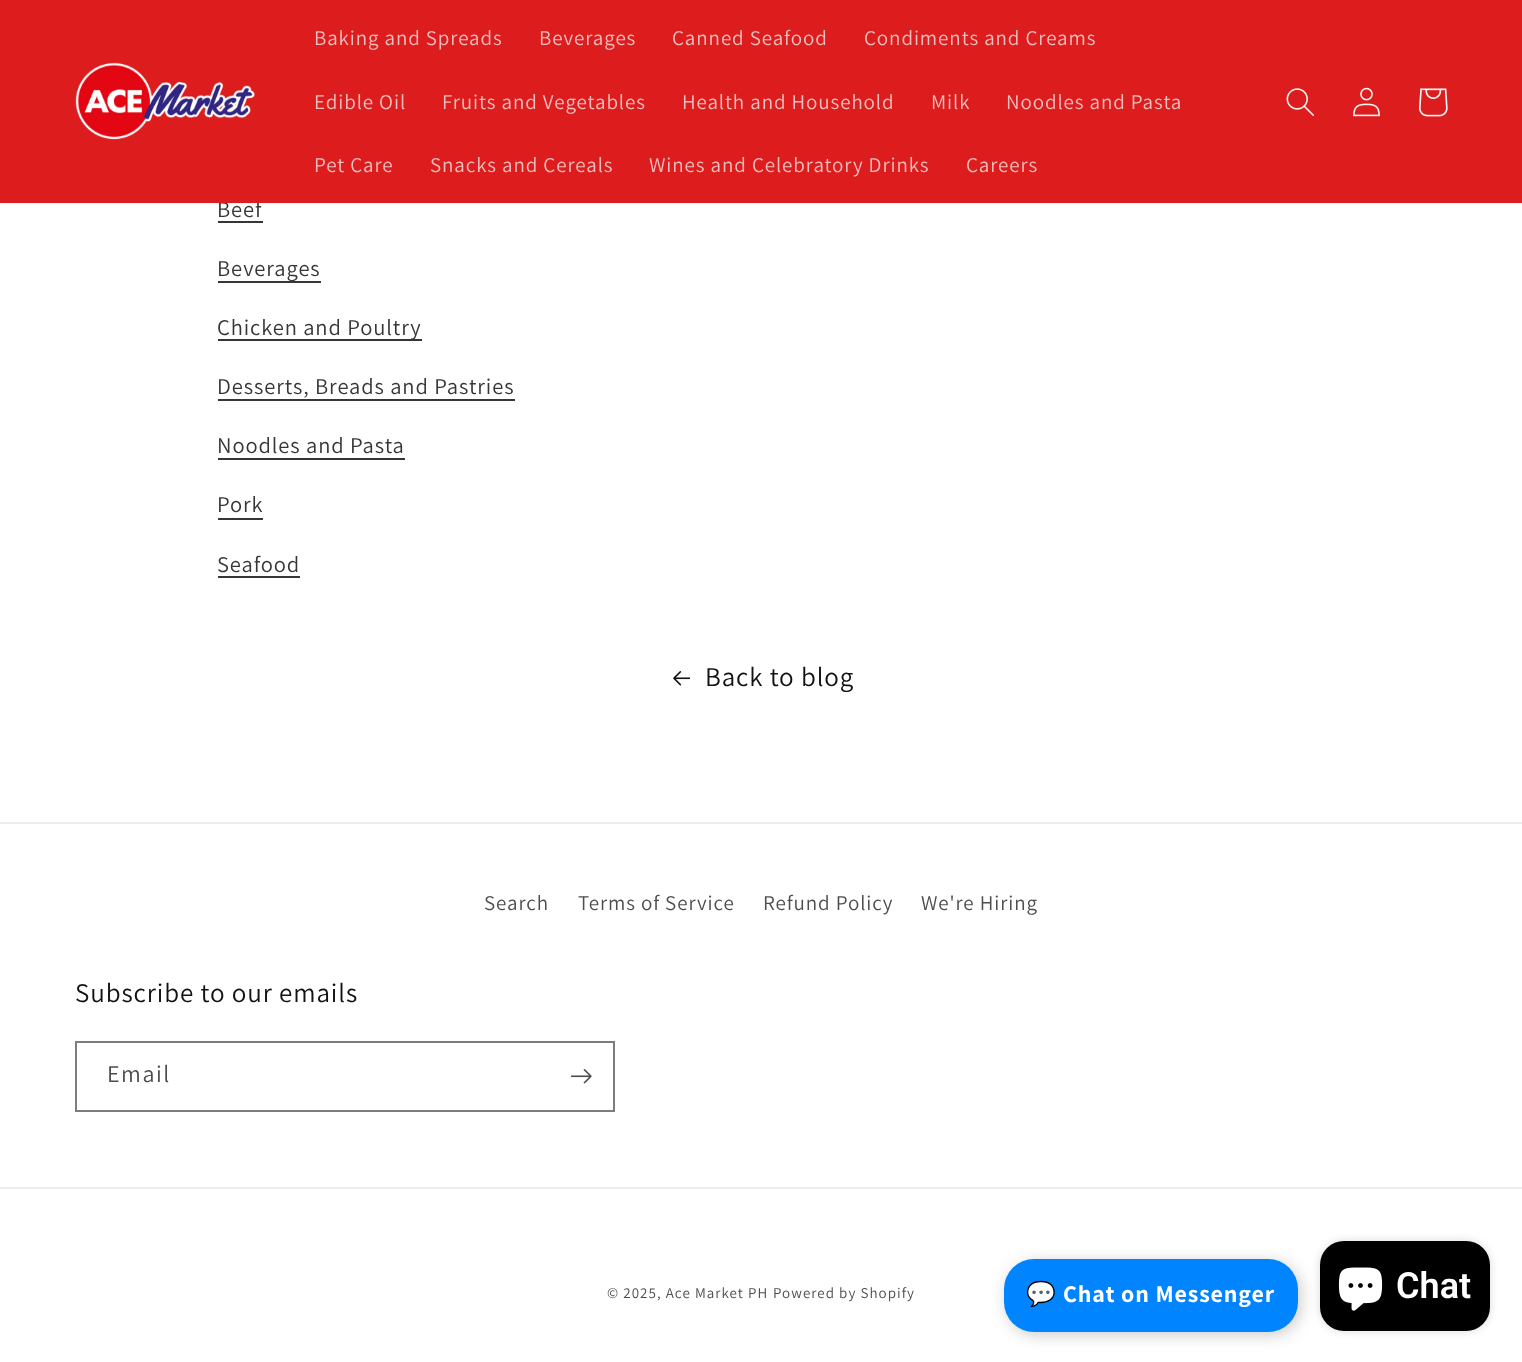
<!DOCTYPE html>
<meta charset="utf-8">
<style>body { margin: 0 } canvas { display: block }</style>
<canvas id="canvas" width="1522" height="1362"></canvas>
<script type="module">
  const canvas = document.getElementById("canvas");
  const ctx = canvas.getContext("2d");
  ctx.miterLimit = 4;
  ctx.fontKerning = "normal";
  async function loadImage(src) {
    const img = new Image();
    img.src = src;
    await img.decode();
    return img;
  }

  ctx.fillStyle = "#ffffff";
  ctx.fillRect(0, 0, 1522, 1362);
  ctx.letterSpacing = "0.9px";
  ctx.font = "22.5px Assistant";
  ctx.fillStyle = "#363636";
  ctx.fillText("Beef", 217, 217);
  ctx.fillStyle = "#dd1d1d";
  ctx.fillRect(0, 0, 1522, 203);
  ctx.drawImage(await loadImage("img1.png"), 75, 62, 180, 78);
  ctx.font = "21px Assistant";
  ctx.fillStyle = "#efbfbf";
  ctx.fillText("Baking and Spreads", 314, 45);
  ctx.fillText("Beverages", 539, 45);
  ctx.fillText("Canned Seafood", 672, 45);
  ctx.fillText("Condiments and Creams", 864, 45);
  ctx.fillText("Edible Oil", 314, 109);
  ctx.fillText("Fruits and Vegetables", 442, 109);
  ctx.fillText("Health and Household", 682, 109);
  ctx.fillText("Milk", 931, 109);
  ctx.fillText("Noodles and Pasta", 1006, 109);
  ctx.fillText("Pet Care", 314, 172);
  ctx.fillText("Snacks and Cereals", 430, 172);
  ctx.fillText("Wines and Celebratory Drinks", 649, 172);
  ctx.fillText("Careers", 966, 172);
  ctx.drawImage(await loadImage("img2.png"), 1286, 88, 28, 28);
  ctx.drawImage(await loadImage("img3.png"), 1353, 87, 27, 30);
  ctx.drawImage(await loadImage("img4.png"), 1419, 88, 29, 29);
  ctx.fillStyle = "#363636";
  ctx.fillRect(218, 221, 45, 2);
  ctx.fillRect(218, 281, 103, 2);
  ctx.font = "22.5px Assistant";
  ctx.fillText("Beverages", 217, 276);
  ctx.fillRect(218, 339, 204, 2);
  ctx.fillText("Chicken and Poultry", 217, 335);
  ctx.fillText("Desserts, Breads and Pastries", 217, 394);
  ctx.fillRect(218, 399, 297, 2);
  ctx.fillText("Noodles and Pasta", 217, 453);
  ctx.fillRect(218, 458, 187, 2);
  ctx.fillText("Pork", 217, 512);
  ctx.fillRect(218, 518, 45, 2);
  ctx.fillText("Seafood", 217, 572);
  ctx.fillRect(218, 576, 82, 2);
  ctx.drawImage(await loadImage("img5.png"), 673, 671, 17, 15);
  ctx.font = "27px Assistant";
  ctx.fillStyle = "#121212";
  ctx.fillText("Back to blog", 705, 686);
  ctx.fillStyle = "#ececec";
  ctx.fillRect(0, 822, 1522, 2);
  ctx.font = "21px Assistant";
  ctx.fillStyle = "#4d4d4d";
  ctx.fillText("Search", 484, 910);
  ctx.fillText("Terms of Service", 578, 910);
  ctx.fillText("Refund Policy", 763, 910);
  ctx.fillText("We're Hiring", 921, 910);
  ctx.font = "27px Assistant";
  ctx.fillStyle = "#121212";
  ctx.fillText("Subscribe to our emails", 75, 1002);
  ctx.strokeStyle = "#7d7d7d";
  ctx.lineWidth = 2;
  ctx.strokeRect(76, 1042, 538, 69);
  ctx.letterSpacing = "1.5px";
  ctx.font = "24px Assistant";
  ctx.fillStyle = "#4d4d4d";
  ctx.fillText("Email", 107, 1082);
  ctx.drawImage(await loadImage("img6.png"), 570, 1069, 22, 15);
  ctx.fillStyle = "#ececec";
  ctx.fillRect(0, 1187, 1522, 2);
  ctx.letterSpacing = "1.05px";
  ctx.font = "15px Assistant";
  ctx.fillStyle = "#4d4d4d";
  ctx.fillText("© 2025, Ace Market PH", 607, 1298);
  ctx.fillText("Powered by Shopify", 773, 1298);
  ctx.fillStyle = "rgba(0, 0, 0, 0.15)";
  ctx.filter = "blur(4px)";
  ctx.beginPath();
  ctx.roundRect(1320, 1241, 170, 90, 24);
  ctx.fill();
  ctx.filter = "none";
  ctx.fillStyle = "#000000";
  ctx.beginPath();
  ctx.roundRect(1320, 1241, 170, 90, 24);
  ctx.fill();
  ctx.fillStyle = "rgba(0, 0, 0, 0.2)";
  ctx.filter = "blur(7.5px)";
  ctx.beginPath();
  ctx.roundRect(1007, 1262, 294, 73, 30);
  ctx.fill();
  ctx.filter = "none";
  ctx.fillStyle = "#0084ff";
  ctx.beginPath();
  ctx.roundRect(1004, 1259, 294, 73, 30);
  ctx.fill();
  ctx.letterSpacing = "0.9px";
  ctx.font = "bold 24px Noto Color Emoji";
  ctx.fillStyle = "#ffffff";
  ctx.fillText("💬", 1026, 1302);
  ctx.font = "bold 24px Assistant";
  ctx.fillText("Chat on Messenger", 1063, 1302);
  ctx.drawImage(await loadImage("img7.png"), 1338, 1267, 45, 44);
  ctx.letterSpacing = "0px";
  ctx.font = "600 36px Roboto";
  ctx.fillText("Chat", 1396, 1298);
</script>
